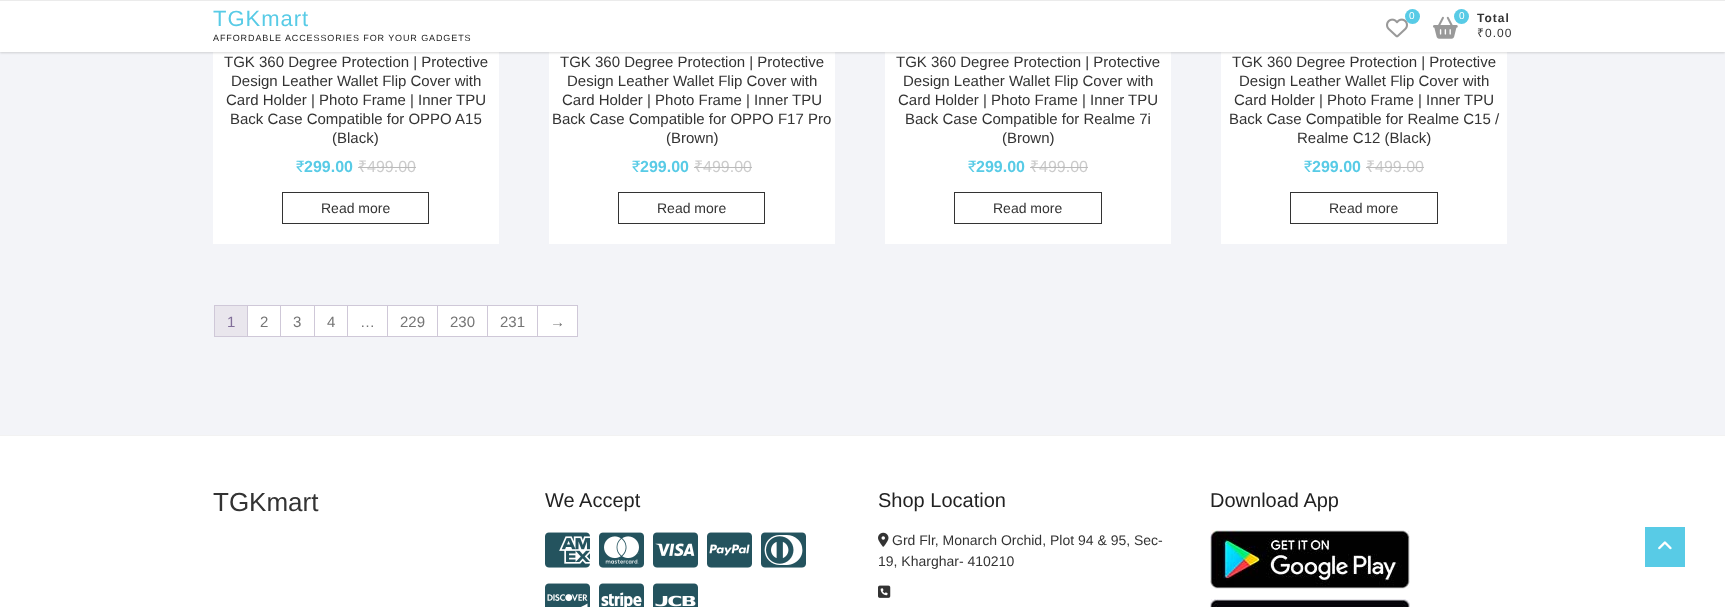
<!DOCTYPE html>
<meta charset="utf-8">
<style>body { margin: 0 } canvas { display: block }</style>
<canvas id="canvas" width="1725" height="607"></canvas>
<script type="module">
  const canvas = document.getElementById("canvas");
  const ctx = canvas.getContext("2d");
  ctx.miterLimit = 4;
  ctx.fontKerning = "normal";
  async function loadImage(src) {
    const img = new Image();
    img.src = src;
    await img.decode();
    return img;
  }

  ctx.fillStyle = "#f3f4f8";
  ctx.fillRect(0, 0, 1725, 607);
  ctx.fillStyle = "#ffffff";
  ctx.fillRect(213, 52, 286, 192);
  ctx.fillRect(549, 52, 286, 192);
  ctx.fillRect(885, 52, 286, 192);
  ctx.fillRect(1221, 52, 286, 192);
  ctx.fillStyle = "rgba(0, 0, 0, 0.15)";
  ctx.filter = "blur(1px)";
  ctx.beginPath();
  ctx.rect(0, 1, 1725, 52);
  ctx.fill();
  ctx.filter = "none";
  ctx.fillStyle = "#ffffff";
  ctx.fillRect(0, 1, 1725, 51);
  ctx.fillStyle = "#ebebeb";
  ctx.fillRect(0, 0, 1725, 1);
  ctx.letterSpacing = "1px";
  ctx.font = "22px Liberation Sans";
  ctx.fillStyle = "#58cbe6";
  ctx.fillText("TGKmart", 213, 26);
  ctx.letterSpacing = "0.9px";
  ctx.font = "9px Liberation Sans";
  ctx.fillStyle = "#222222";
  ctx.fillText("AFFORDABLE ACCESSORIES FOR YOUR GADGETS", 213, 41);
  ctx.drawImage(await loadImage("img1.png"), 1386, 18, 22, 20);
  ctx.fillStyle = "#58cbe6";
  ctx.beginPath();
  ctx.arc(1412.5, 16.5, 7.5, 0, Math.PI * 2);
  ctx.fill();
  ctx.letterSpacing = "0px";
  ctx.font = "10px Liberation Sans";
  ctx.fillStyle = "#ffffff";
  ctx.fillText("0", 1409, 19);
  ctx.drawImage(await loadImage("img2.png"), 1433, 16, 25, 23);
  ctx.fillStyle = "#58cbe6";
  ctx.beginPath();
  ctx.arc(1461.5, 16.5, 7.5, 0, Math.PI * 2);
  ctx.fill();
  ctx.fillStyle = "#ffffff";
  ctx.fillText("0", 1459, 19);
  ctx.letterSpacing = "1px";
  ctx.font = "bold 12px Liberation Sans";
  ctx.fillStyle = "#333333";
  ctx.fillText("Total", 1477, 22);
  ctx.font = "12px Noto Sans";
  ctx.fillText("₹", 1477, 37);
  ctx.font = "12px Liberation Sans";
  ctx.fillText("0.00", 1485, 37);
  ctx.letterSpacing = "0px";
  ctx.font = "15px Liberation Sans";
  ctx.fillText("TGK 360 Degree Protection | Protective", 224, 67);
  ctx.fillText("Design Leather Wallet Flip Cover with", 231, 86);
  ctx.fillText("Card Holder | Photo Frame | Inner TPU", 226, 105);
  ctx.fillText("Back Case Compatible for OPPO A15", 230, 124);
  ctx.fillText("(Black)", 332, 143);
  ctx.font = "16px Roboto";
  ctx.fillStyle = "#58cbe6";
  ctx.fillText("₹", 296, 172);
  ctx.font = "bold 16px Liberation Sans";
  ctx.fillText("299.00", 304, 172);
  ctx.font = "16px Noto Sans";
  ctx.fillStyle = "#cccccc";
  ctx.fillText("₹", 358, 172);
  ctx.font = "16px Liberation Sans";
  ctx.fillText("499.00", 367, 172);
  ctx.fillStyle = "#bababa";
  ctx.fillRect(358, 167, 9, 1);
  ctx.fillRect(367, 167, 49, 1);
  ctx.strokeStyle = "#333333";
  ctx.strokeRect(282.5, 192.5, 146, 31);
  ctx.font = "14px Liberation Sans";
  ctx.fillStyle = "#333333";
  ctx.fillText("Read more", 321, 213);
  ctx.font = "15px Liberation Sans";
  ctx.fillText("TGK 360 Degree Protection | Protective", 560, 67);
  ctx.fillText("Design Leather Wallet Flip Cover with", 567, 86);
  ctx.fillText("Card Holder | Photo Frame | Inner TPU", 562, 105);
  ctx.fillText("Back Case Compatible for OPPO F17 Pro", 552, 124);
  ctx.fillText("(Brown)", 666, 143);
  ctx.font = "16px Roboto";
  ctx.fillStyle = "#58cbe6";
  ctx.fillText("₹", 632, 172);
  ctx.font = "bold 16px Liberation Sans";
  ctx.fillText("299.00", 640, 172);
  ctx.font = "16px Noto Sans";
  ctx.fillStyle = "#cccccc";
  ctx.fillText("₹", 694, 172);
  ctx.font = "16px Liberation Sans";
  ctx.fillText("499.00", 703, 172);
  ctx.fillStyle = "#bababa";
  ctx.fillRect(694, 167, 9, 1);
  ctx.fillRect(703, 167, 49, 1);
  ctx.strokeRect(618.5, 192.5, 146, 31);
  ctx.font = "14px Liberation Sans";
  ctx.fillStyle = "#333333";
  ctx.fillText("Read more", 657, 213);
  ctx.font = "15px Liberation Sans";
  ctx.fillText("TGK 360 Degree Protection | Protective", 896, 67);
  ctx.fillText("Design Leather Wallet Flip Cover with", 903, 86);
  ctx.fillText("Card Holder | Photo Frame | Inner TPU", 898, 105);
  ctx.fillText("Back Case Compatible for Realme 7i", 905, 124);
  ctx.fillText("(Brown)", 1002, 143);
  ctx.font = "16px Roboto";
  ctx.fillStyle = "#58cbe6";
  ctx.fillText("₹", 968, 172);
  ctx.font = "bold 16px Liberation Sans";
  ctx.fillText("299.00", 976, 172);
  ctx.font = "16px Noto Sans";
  ctx.fillStyle = "#cccccc";
  ctx.fillText("₹", 1030, 172);
  ctx.font = "16px Liberation Sans";
  ctx.fillText("499.00", 1039, 172);
  ctx.fillStyle = "#bababa";
  ctx.fillRect(1030, 167, 9, 1);
  ctx.fillRect(1039, 167, 49, 1);
  ctx.strokeRect(954.5, 192.5, 147, 31);
  ctx.font = "14px Liberation Sans";
  ctx.fillStyle = "#333333";
  ctx.fillText("Read more", 993, 213);
  ctx.font = "15px Liberation Sans";
  ctx.fillText("TGK 360 Degree Protection | Protective", 1232, 67);
  ctx.fillText("Design Leather Wallet Flip Cover with", 1239, 86);
  ctx.fillText("Card Holder | Photo Frame | Inner TPU", 1234, 105);
  ctx.fillText("Back Case Compatible for Realme C15 /", 1229, 124);
  ctx.fillText("Realme C12 (Black)", 1297, 143);
  ctx.font = "16px Roboto";
  ctx.fillStyle = "#58cbe6";
  ctx.fillText("₹", 1304, 172);
  ctx.font = "bold 16px Liberation Sans";
  ctx.fillText("299.00", 1312, 172);
  ctx.font = "16px Noto Sans";
  ctx.fillStyle = "#cccccc";
  ctx.fillText("₹", 1366, 172);
  ctx.font = "16px Liberation Sans";
  ctx.fillText("499.00", 1375, 172);
  ctx.fillStyle = "#bababa";
  ctx.fillRect(1366, 167, 9, 1);
  ctx.fillRect(1375, 167, 49, 1);
  ctx.strokeRect(1290.5, 192.5, 147, 31);
  ctx.font = "14px Liberation Sans";
  ctx.fillStyle = "#333333";
  ctx.fillText("Read more", 1329, 213);
  ctx.fillStyle = "#ffffff";
  ctx.fillRect(248, 306, 329, 30);
  ctx.fillStyle = "#cfc8d8";
  ctx.fillRect(214, 305, 364, 1);
  ctx.fillRect(214, 336, 364, 1);
  ctx.fillRect(214, 305, 1, 32);
  ctx.fillRect(247, 306, 1, 30);
  ctx.fillStyle = "#e9e6ed";
  ctx.fillRect(215, 306, 32, 30);
  ctx.font = "15px Liberation Sans";
  ctx.fillStyle = "#816e99";
  ctx.fillText("1", 227, 327);
  ctx.fillStyle = "#cfc8d8";
  ctx.fillRect(280, 306, 1, 30);
  ctx.fillStyle = "#747474";
  ctx.fillText("2", 260, 327);
  ctx.fillStyle = "#cfc8d8";
  ctx.fillRect(314, 306, 1, 30);
  ctx.fillStyle = "#747474";
  ctx.fillText("3", 293, 327);
  ctx.fillStyle = "#cfc8d8";
  ctx.fillRect(347, 306, 1, 30);
  ctx.fillStyle = "#747474";
  ctx.fillText("4", 327, 327);
  ctx.fillStyle = "#cfc8d8";
  ctx.fillRect(387, 306, 1, 30);
  ctx.fillStyle = "#747474";
  ctx.fillText("…", 360, 327);
  ctx.fillStyle = "#cfc8d8";
  ctx.fillRect(437, 306, 1, 30);
  ctx.fillStyle = "#747474";
  ctx.fillText("229", 400, 327);
  ctx.fillStyle = "#cfc8d8";
  ctx.fillRect(487, 306, 1, 30);
  ctx.fillStyle = "#747474";
  ctx.fillText("230", 450, 327);
  ctx.fillStyle = "#cfc8d8";
  ctx.fillRect(537, 306, 1, 30);
  ctx.fillStyle = "#747474";
  ctx.fillText("231", 500, 327);
  ctx.fillStyle = "#cfc8d8";
  ctx.fillRect(577, 306, 1, 30);
  ctx.fillStyle = "#747474";
  ctx.fillText("→", 550, 327);
  ctx.fillStyle = "#ffffff";
  ctx.fillRect(0, 436, 1725, 171);
  ctx.fillStyle = "#f2f2f2";
  ctx.fillRect(0, 435, 1725, 1);
  ctx.font = "26px Liberation Sans";
  ctx.fillStyle = "#333333";
  ctx.fillText("TGKmart", 213, 511);
  ctx.font = "20px Liberation Sans";
  ctx.fillStyle = "#222222";
  ctx.fillText("We Accept", 545, 507);
  ctx.drawImage(await loadImage("img3.png"), 545, 532, 45, 36);
  ctx.drawImage(await loadImage("img4.png"), 599, 532, 45, 36);
  ctx.drawImage(await loadImage("img5.png"), 653, 532, 45, 36);
  ctx.drawImage(await loadImage("img6.png"), 707, 532, 45, 36);
  ctx.drawImage(await loadImage("img7.png"), 761, 532, 45, 36);
  ctx.drawImage(await loadImage("img8.png"), 545, 583, 45, 24);
  ctx.drawImage(await loadImage("img9.png"), 599, 583, 45, 24);
  ctx.drawImage(await loadImage("img10.png"), 653, 583, 45, 24);
  ctx.fillText("Shop Location", 878, 507);
  ctx.drawImage(await loadImage("img11.png"), 878, 532, 11, 15);
  ctx.font = "14px Liberation Sans";
  ctx.fillStyle = "#333333";
  ctx.fillText("Grd Flr, Monarch Orchid, Plot 94 & 95, Sec-", 892, 545);
  ctx.fillText("19, Kharghar- 410210", 878, 566);
  ctx.drawImage(await loadImage("img12.png"), 878, 585, 13, 13);
  ctx.font = "20px Liberation Sans";
  ctx.fillStyle = "#222222";
  ctx.fillText("Download App", 1210, 507);
  ctx.drawImage(await loadImage("img13.png"), 1210, 530, 200, 59);
  ctx.drawImage(await loadImage("img14.png"), 1210, 599, 200, 8);
  ctx.fillStyle = "#58cbe6";
  ctx.fillRect(1645, 527, 40, 40);
  ctx.drawImage(await loadImage("img15.png"), 1658, 541, 14, 9);
</script>
